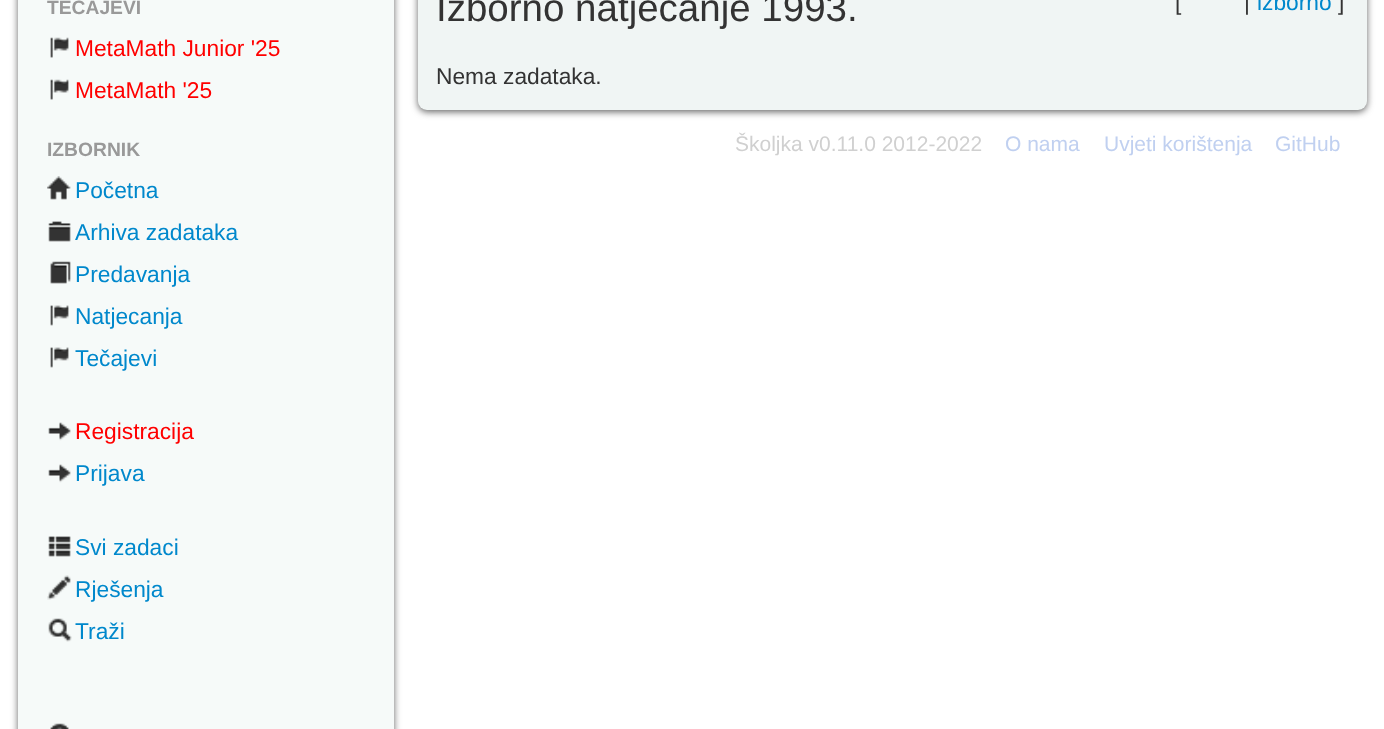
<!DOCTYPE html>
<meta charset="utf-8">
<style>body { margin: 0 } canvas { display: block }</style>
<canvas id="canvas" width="1384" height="729"></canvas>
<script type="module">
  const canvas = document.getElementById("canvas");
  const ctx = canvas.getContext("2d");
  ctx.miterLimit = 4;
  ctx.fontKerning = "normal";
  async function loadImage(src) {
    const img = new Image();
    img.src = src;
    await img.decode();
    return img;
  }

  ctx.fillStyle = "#ffffff";
  ctx.fillRect(0, 0, 1384, 729);
  ctx.fillStyle = "#666666";
  ctx.filter = "blur(3.5px)";
  ctx.beginPath();
  ctx.roundRect(18, -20, 376, 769, 9);
  ctx.fill();
  ctx.filter = "none";
  ctx.fillStyle = "#f6faf9";
  ctx.fillRect(18, 0, 376, 729);
  ctx.font = "bold 19.25px Liberation Sans";
  ctx.fillStyle = "#999999";
  ctx.fillText("TEČAJEVI", 47, 14);
  ctx.drawImage(await loadImage("img1.png"), 50, 37, 19, 21);
  ctx.font = "22.75px Liberation Sans";
  ctx.fillStyle = "#ff0000";
  ctx.fillText("MetaMath Junior '25", 75, 56);
  ctx.drawImage(await loadImage("img2.png"), 50, 79, 19, 21);
  ctx.fillText("MetaMath '25", 75, 98);
  ctx.font = "bold 19.25px Liberation Sans";
  ctx.fillStyle = "#999999";
  ctx.fillText("IZBORNIK", 47, 156);
  ctx.drawImage(await loadImage("img3.png"), 47, 176, 24, 24);
  ctx.font = "22.75px Liberation Sans";
  ctx.fillStyle = "#0088cc";
  ctx.fillText("Početna", 75, 198);
  ctx.drawImage(await loadImage("img4.png"), 48, 221, 23, 21);
  ctx.fillText("Arhiva zadataka", 75, 240);
  ctx.drawImage(await loadImage("img5.png"), 50, 261, 21, 23);
  ctx.fillText("Predavanja", 75, 282);
  ctx.drawImage(await loadImage("img6.png"), 50, 305, 19, 21);
  ctx.fillText("Natjecanja", 75, 324);
  ctx.drawImage(await loadImage("img6.png"), 50, 347, 19, 21);
  ctx.fillText("Tečajevi", 75, 366);
  ctx.drawImage(await loadImage("img7.png"), 48, 422, 23, 19);
  ctx.fillStyle = "#ff0000";
  ctx.fillText("Registracija", 75, 439);
  ctx.drawImage(await loadImage("img7.png"), 48, 464, 23, 19);
  ctx.fillStyle = "#0088cc";
  ctx.fillText("Prijava", 75, 481);
  ctx.drawImage(await loadImage("img8.png"), 48, 536, 23, 21);
  ctx.fillText("Svi zadaci", 75, 555);
  ctx.drawImage(await loadImage("img9.png"), 47, 575, 24, 25);
  ctx.fillText("Rješenja", 75, 597);
  ctx.drawImage(await loadImage("img10.png"), 48, 618, 24, 24);
  ctx.fillText("Traži", 75, 639);
  ctx.drawImage(await loadImage("img11.png"), 50, 723, 19, 6);
  ctx.fillStyle = "#666666";
  ctx.filter = "blur(3.5px)";
  ctx.beginPath();
  ctx.roundRect(418, -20, 949, 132, 9);
  ctx.fill();
  ctx.filter = "none";
  ctx.fillStyle = "#f0f5f4";
  ctx.beginPath();
  ctx.roundRect(418, -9, 949, 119, 9);
  ctx.fill();
  ctx.font = "38.5px Liberation Sans";
  ctx.fillStyle = "#333333";
  ctx.fillText("Izborno natjecanje 1993.", 436, 21);
  ctx.font = "22.75px Liberation Sans";
  ctx.fillText("[", 1175, 10);
  ctx.fillText("|", 1244, 10);
  ctx.fillStyle = "#0088cc";
  ctx.fillText("izborno", 1257, 10);
  ctx.fillStyle = "#333333";
  ctx.fillText("]", 1338, 10);
  ctx.fillText("Nema zadataka.", 436, 84);
  ctx.font = "21px Liberation Sans";
  ctx.fillStyle = "#d0d0d0";
  ctx.fillText("Školjka v0.11.0 2012-2022", 735, 151);
  ctx.fillStyle = "#c0d0f0";
  ctx.fillText("O nama", 1005, 151);
  ctx.fillText("Uvjeti korištenja", 1104, 151);
  ctx.fillText("GitHub", 1275, 151);
</script>
